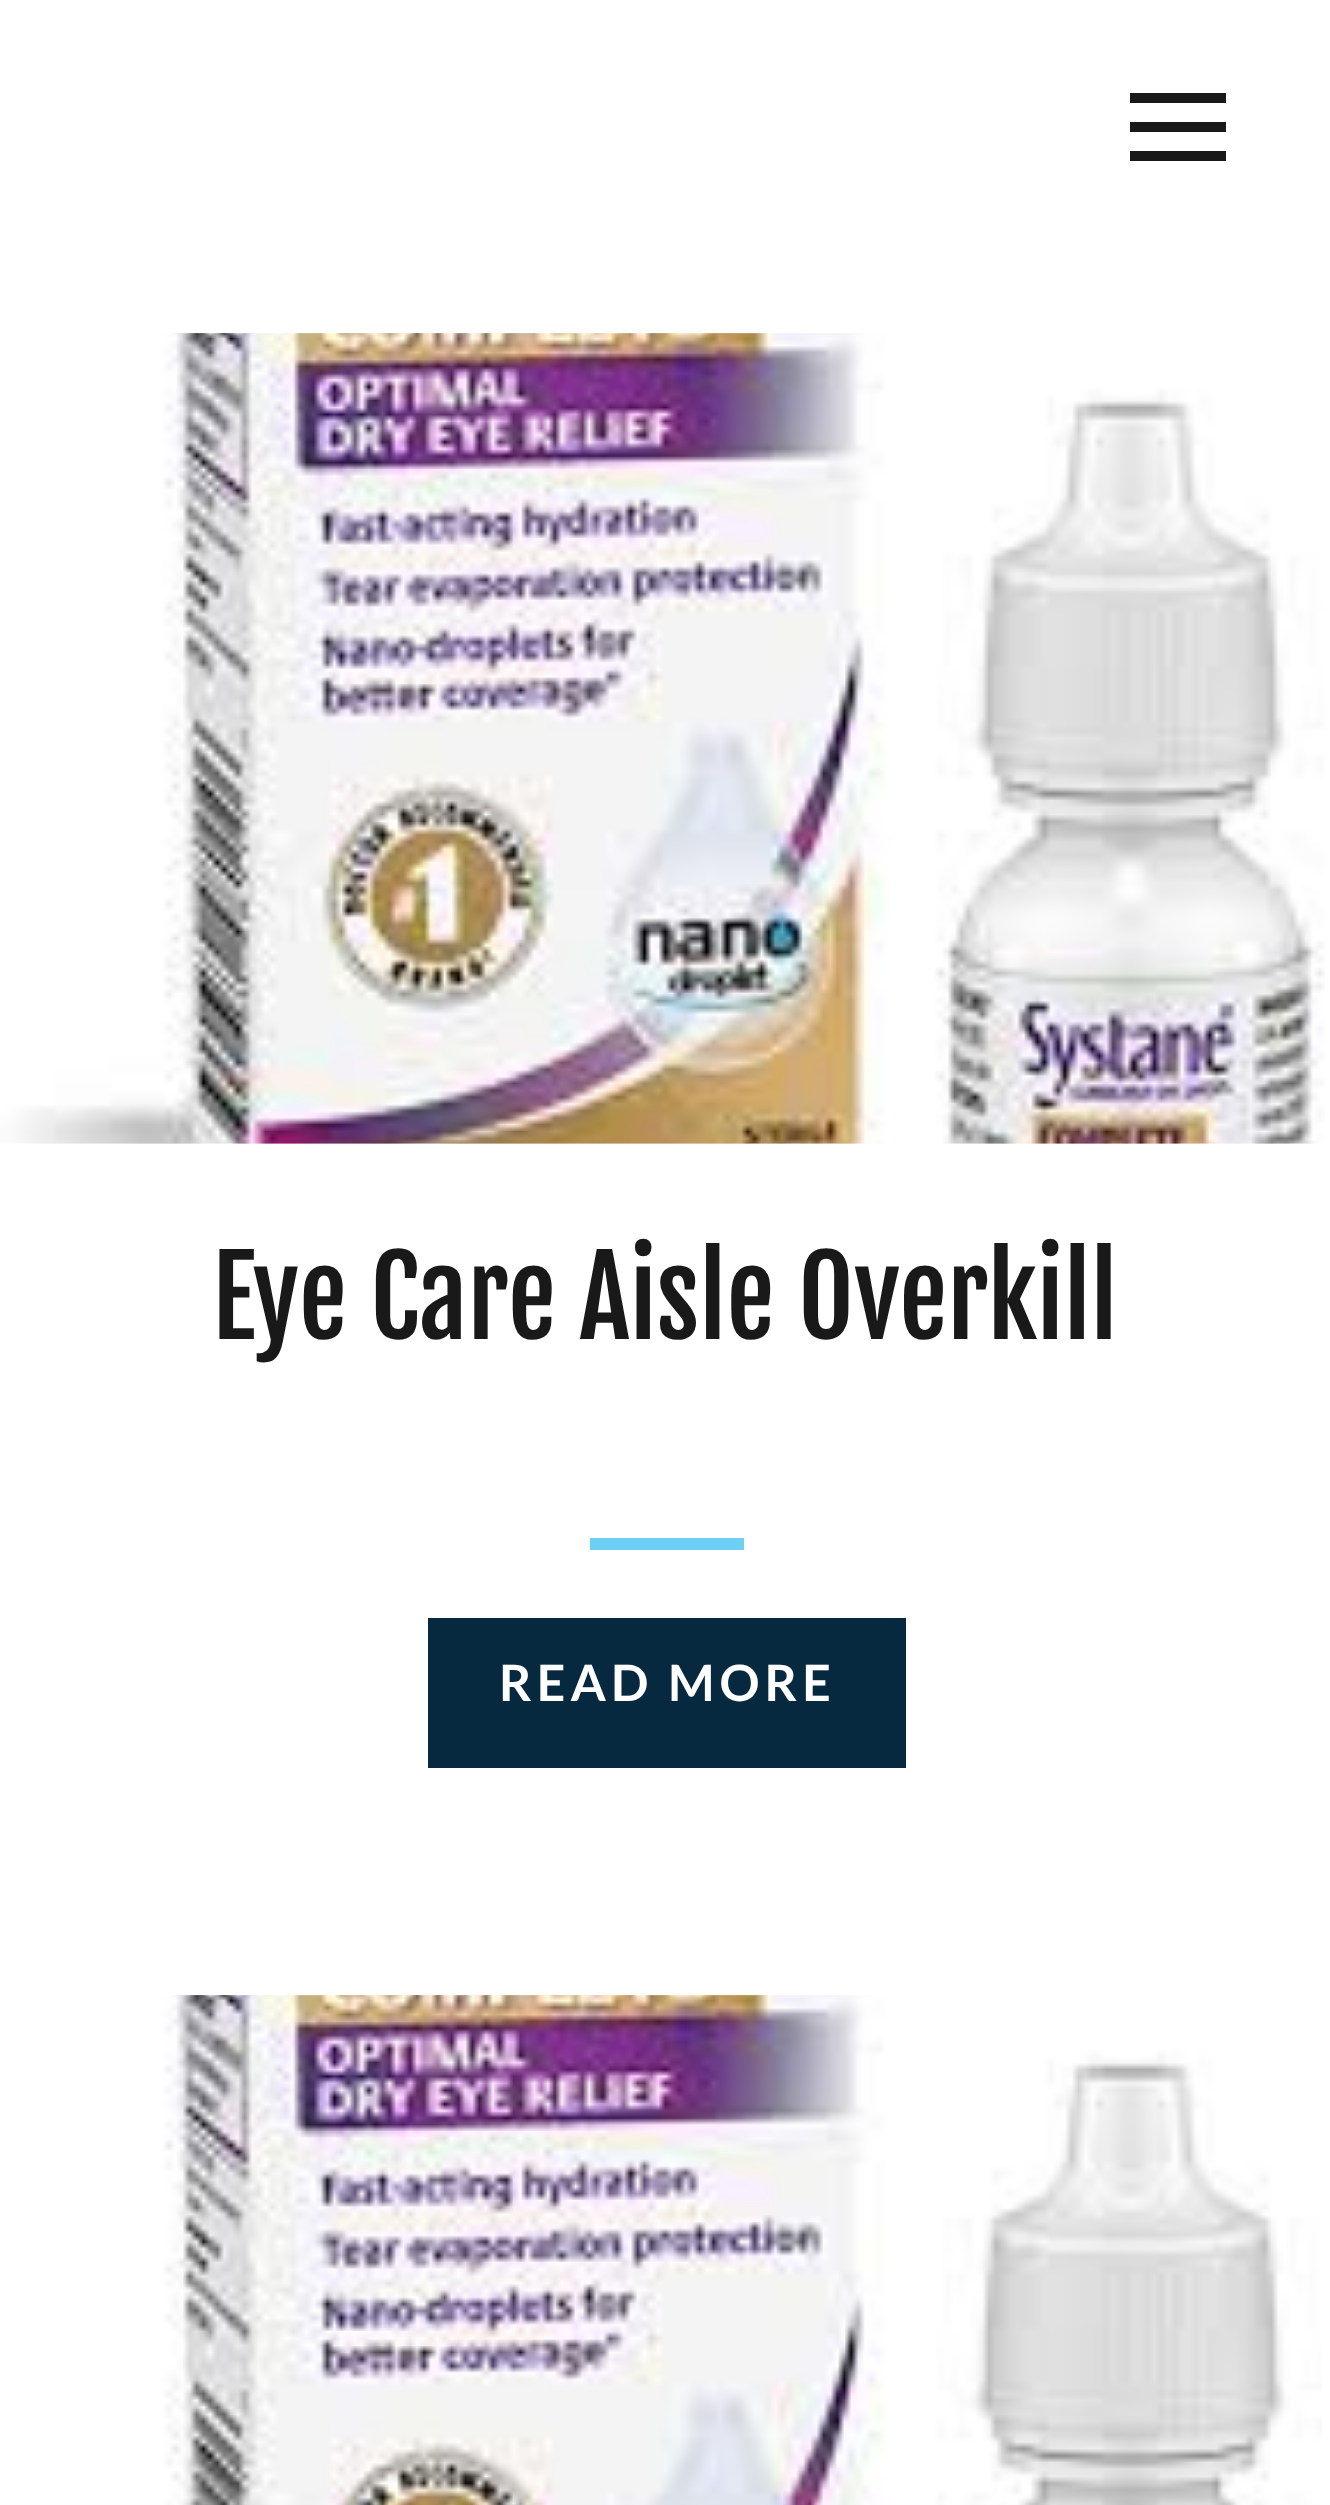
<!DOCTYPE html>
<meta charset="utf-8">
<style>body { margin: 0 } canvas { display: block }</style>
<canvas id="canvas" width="1330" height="2505"></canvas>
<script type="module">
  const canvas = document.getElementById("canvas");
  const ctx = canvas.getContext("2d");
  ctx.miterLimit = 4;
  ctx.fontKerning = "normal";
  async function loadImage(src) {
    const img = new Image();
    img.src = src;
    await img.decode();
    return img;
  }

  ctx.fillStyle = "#ffffff";
  ctx.fillRect(0, 0, 1330, 2505);
  ctx.fillStyle = "#19191a";
  ctx.beginPath();
  ctx.moveTo(1130, 122);
  ctx.lineTo(1226, 122);
  ctx.lineTo(1226, 132);
  ctx.lineTo(1130, 132);
  ctx.closePath();
  ctx.moveTo(1130, 93);
  ctx.lineTo(1226, 93);
  ctx.lineTo(1226, 103);
  ctx.lineTo(1130, 103);
  ctx.closePath();
  ctx.moveTo(1130, 151);
  ctx.lineTo(1226, 151);
  ctx.lineTo(1226, 161);
  ctx.lineTo(1130, 161);
  ctx.closePath();
  ctx.fill();
  ctx.drawImage(await loadImage("img1.png"), 0, 333, 1325, 811);
  ctx.font = "108px Fjalla One";
  ctx.fillText("Eye Care Aisle Overkill", 212, 1339);
  ctx.fillStyle = "#6dcff6";
  ctx.fillRect(590, 1538, 154, 12);
  ctx.fillStyle = "#062940";
  ctx.fillRect(428, 1618, 478, 150);
  ctx.letterSpacing = "5px";
  ctx.font = "bold 50px Lato";
  ctx.fillStyle = "#ffffff";
  ctx.fillText("READ MORE", 499, 1701);
  ctx.drawImage(await loadImage("img2.png"), 163, 1995, 1159, 510);
</script>
